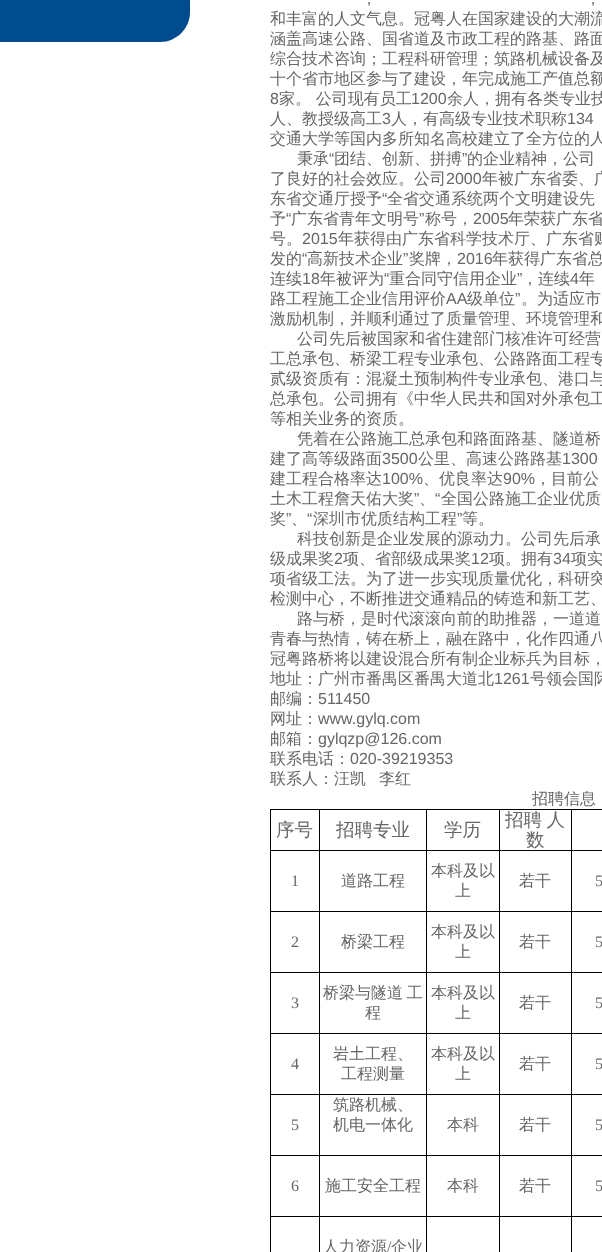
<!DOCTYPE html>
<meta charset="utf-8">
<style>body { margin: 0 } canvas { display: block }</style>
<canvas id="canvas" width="602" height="1252"></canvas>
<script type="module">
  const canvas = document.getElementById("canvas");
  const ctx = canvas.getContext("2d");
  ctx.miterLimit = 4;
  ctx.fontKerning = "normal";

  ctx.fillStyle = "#ffffff";
  ctx.fillRect(0, 0, 602, 1252);
  ctx.fillStyle = "#004b8d";
  ctx.beginPath();
  ctx.moveTo(30, -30);
  ctx.lineTo(190, -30);
  ctx.lineTo(190, 12);
  ctx.bezierCurveTo(190, 28.5, 176.5, 42, 160, 42);
  ctx.lineTo(0, 42);
  ctx.lineTo(0, 0);
  ctx.bezierCurveTo(0, -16.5, 13.5, -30, 30, -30);
  ctx.closePath();
  ctx.fill();
  ctx.font = "500 16px WenQuanYi Zen Hei";
  ctx.fillStyle = "#666666";
  ctx.fillText("，", 361, 4);
  ctx.fillText("，", 585, 4);
  ctx.fillText("和丰富的人文气息。冠粤人在国家建设的大潮流", 270, 24);
  ctx.fillText("涵盖高速公路、国省道及市政工程的路基、路面", 270, 44);
  ctx.fillText("综合技术咨询；工程科研管理；筑路机械设备及", 270, 64);
  ctx.fillText("十个省市地区参与了建设，年完成施工产值总额", 270, 84);
  ctx.font = "16px Liberation Sans";
  ctx.fillText("8", 270, 104);
  ctx.font = "500 16px WenQuanYi Zen Hei";
  ctx.fillText("家。 公司现有员工", 279, 104);
  ctx.font = "16px Liberation Sans";
  ctx.fillText("1200", 411, 104);
  ctx.font = "500 16px WenQuanYi Zen Hei";
  ctx.fillText("余人，拥有各类专业技", 447, 104);
  ctx.fillText("人、教授级高工", 270, 124);
  ctx.font = "16px Liberation Sans";
  ctx.fillText("3", 382, 124);
  ctx.font = "500 16px WenQuanYi Zen Hei";
  ctx.fillText("人，有高级专业技术职称", 391, 124);
  ctx.font = "16px Liberation Sans";
  ctx.fillText("134", 567, 124);
  ctx.font = "500 16px WenQuanYi Zen Hei";
  ctx.fillText("交通大学等国内多所知名高校建立了全方位的人", 270, 144);
  ctx.fillText("秉承", 297, 164);
  ctx.font = "16px Liberation Sans";
  ctx.fillText("“", 329, 164);
  ctx.font = "500 16px WenQuanYi Zen Hei";
  ctx.fillText("团结、创新、拼搏", 334, 164);
  ctx.font = "16px Liberation Sans";
  ctx.fillText("”", 462, 164);
  ctx.font = "500 16px WenQuanYi Zen Hei";
  ctx.fillText("的企业精神，公司", 467, 164);
  ctx.fillText("了良好的社会效应。公司", 270, 184);
  ctx.font = "16px Liberation Sans";
  ctx.fillText("2000", 446, 184);
  ctx.font = "500 16px WenQuanYi Zen Hei";
  ctx.fillText("年被广东省委、广", 482, 184);
  ctx.fillText("东省交通厅授予", 270, 204);
  ctx.font = "16px Liberation Sans";
  ctx.fillText("“", 382, 204);
  ctx.font = "500 16px WenQuanYi Zen Hei";
  ctx.fillText("全省交通系统两个文明建设先", 387, 204);
  ctx.fillText("予", 270, 224);
  ctx.font = "16px Liberation Sans";
  ctx.fillText("“", 286, 224);
  ctx.font = "500 16px WenQuanYi Zen Hei";
  ctx.fillText("广东省青年文明号", 291, 224);
  ctx.font = "16px Liberation Sans";
  ctx.fillText("”", 419, 224);
  ctx.font = "500 16px WenQuanYi Zen Hei";
  ctx.fillText("称号，", 425, 224);
  ctx.font = "16px Liberation Sans";
  ctx.fillText("2005", 473, 224);
  ctx.font = "500 16px WenQuanYi Zen Hei";
  ctx.fillText("年荣获广东省", 508, 224);
  ctx.fillText("号。", 270, 244);
  ctx.font = "16px Liberation Sans";
  ctx.fillText("2015", 302, 244);
  ctx.font = "500 16px WenQuanYi Zen Hei";
  ctx.fillText("年获得由广东省科学技术厅、广东省财", 338, 244);
  ctx.fillText("发的", 270, 264);
  ctx.font = "16px Liberation Sans";
  ctx.fillText("“", 302, 264);
  ctx.font = "500 16px WenQuanYi Zen Hei";
  ctx.fillText("高新技术企业", 307, 264);
  ctx.font = "16px Liberation Sans";
  ctx.fillText("”", 403, 264);
  ctx.font = "500 16px WenQuanYi Zen Hei";
  ctx.fillText("奖牌，", 409, 264);
  ctx.font = "16px Liberation Sans";
  ctx.fillText("2016", 457, 264);
  ctx.font = "500 16px WenQuanYi Zen Hei";
  ctx.fillText("年获得广东省总", 492, 264);
  ctx.fillText("连续", 270, 284);
  ctx.font = "16px Liberation Sans";
  ctx.fillText("18", 302, 284);
  ctx.font = "500 16px WenQuanYi Zen Hei";
  ctx.fillText("年被评为", 320, 284);
  ctx.font = "16px Liberation Sans";
  ctx.fillText("“", 384, 284);
  ctx.font = "500 16px WenQuanYi Zen Hei";
  ctx.fillText("重合同守信用企业", 389, 284);
  ctx.font = "16px Liberation Sans";
  ctx.fillText("”", 517, 284);
  ctx.font = "500 16px WenQuanYi Zen Hei";
  ctx.fillText("，连续", 522, 284);
  ctx.font = "16px Liberation Sans";
  ctx.fillText("4", 570, 284);
  ctx.font = "500 16px WenQuanYi Zen Hei";
  ctx.fillText("年", 579, 284);
  ctx.fillText("路工程施工企业信用评价", 270, 304);
  ctx.font = "16px Liberation Sans";
  ctx.fillText("AA", 446, 304);
  ctx.font = "500 16px WenQuanYi Zen Hei";
  ctx.fillText("级单位", 467, 304);
  ctx.font = "16px Liberation Sans";
  ctx.fillText("”", 515, 304);
  ctx.font = "500 16px WenQuanYi Zen Hei";
  ctx.fillText("。为适应市", 521, 304);
  ctx.fillText("激励机制，并顺利通过了质量管理、环境管理和", 270, 324);
  ctx.fillText("公司先后被国家和省住建部门核准许可经营", 297, 344);
  ctx.fillText("工总承包、桥梁工程专业承包、公路路面工程专", 270, 364);
  ctx.fillText("贰级资质有：混凝土预制构件专业承包、港口与", 270, 384);
  ctx.fillText("总承包。公司拥有《中华人民共和国对外承包工", 270, 404);
  ctx.fillText("等相关业务的资质。", 270, 424);
  ctx.fillText("凭着在公路施工总承包和路面路基、隧道桥", 297, 444);
  ctx.fillText("建了高等级路面", 270, 464);
  ctx.font = "16px Liberation Sans";
  ctx.fillText("3500", 382, 464);
  ctx.font = "500 16px WenQuanYi Zen Hei";
  ctx.fillText("公里、高速公路路基", 418, 464);
  ctx.font = "16px Liberation Sans";
  ctx.fillText("1300", 562, 464);
  ctx.font = "500 16px WenQuanYi Zen Hei";
  ctx.fillText("建工程合格率达", 270, 484);
  ctx.font = "16px Liberation Sans";
  ctx.fillText("100%", 382, 484);
  ctx.font = "500 16px WenQuanYi Zen Hei";
  ctx.fillText("、优良率达", 423, 484);
  ctx.font = "16px Liberation Sans";
  ctx.fillText("90%", 503, 484);
  ctx.font = "500 16px WenQuanYi Zen Hei";
  ctx.fillText("，目前公", 535, 484);
  ctx.fillText("土木工程詹天佑大奖", 270, 504);
  ctx.font = "16px Liberation Sans";
  ctx.fillText("”", 414, 504);
  ctx.fillText("“", 435, 504);
  ctx.font = "500 16px WenQuanYi Zen Hei";
  ctx.fillText("全国公路施工企业优质", 441, 504);
  ctx.fillText("、", 419, 504);
  ctx.fillText("奖", 270, 524);
  ctx.font = "16px Liberation Sans";
  ctx.fillText("”", 286, 524);
  ctx.fillText("“", 307, 524);
  ctx.font = "500 16px WenQuanYi Zen Hei";
  ctx.fillText("深圳市优质结构工程", 313, 524);
  ctx.font = "16px Liberation Sans";
  ctx.fillText("”", 457, 524);
  ctx.font = "500 16px WenQuanYi Zen Hei";
  ctx.fillText("等。", 462, 524);
  ctx.fillText("、", 291, 524);
  ctx.fillText("科技创新是企业发展的源动力。公司先后承", 297, 544);
  ctx.fillText("级成果奖", 270, 564);
  ctx.font = "16px Liberation Sans";
  ctx.fillText("2", 334, 564);
  ctx.font = "500 16px WenQuanYi Zen Hei";
  ctx.fillText("项、省部级成果奖", 343, 564);
  ctx.font = "16px Liberation Sans";
  ctx.fillText("12", 471, 564);
  ctx.font = "500 16px WenQuanYi Zen Hei";
  ctx.fillText("项。拥有", 489, 564);
  ctx.font = "16px Liberation Sans";
  ctx.fillText("34", 553, 564);
  ctx.font = "500 16px WenQuanYi Zen Hei";
  ctx.fillText("项实", 571, 564);
  ctx.fillText("项省级工法。为了进一步实现质量优化，科研突", 270, 584);
  ctx.fillText("检测中心，不断推进交通精品的铸造和新工艺、", 270, 604);
  ctx.fillText("路与桥，是时代滚滚向前的助推器，一道道", 297, 624);
  ctx.fillText("青春与热情，铸在桥上，融在路中，化作四通八", 270, 644);
  ctx.fillText("冠粤路桥将以建设混合所有制企业标兵为目标，", 270, 664);
  ctx.fillText("地址：广州市番禺区番禺大道北", 270, 684);
  ctx.font = "16px Liberation Sans";
  ctx.fillText("1261", 494, 684);
  ctx.font = "500 16px WenQuanYi Zen Hei";
  ctx.fillText("号领会国际", 530, 684);
  ctx.fillText("邮编：", 270, 704);
  ctx.font = "16px Liberation Sans";
  ctx.fillText("511450", 318, 704);
  ctx.font = "500 16px WenQuanYi Zen Hei";
  ctx.fillText("网址：", 270, 724);
  ctx.font = "16px Liberation Sans";
  ctx.fillText("www.gylq.com", 318, 724);
  ctx.font = "500 16px WenQuanYi Zen Hei";
  ctx.fillText("邮箱：", 270, 744);
  ctx.font = "16px Liberation Sans";
  ctx.fillText("gylqzp@126.com", 318, 744);
  ctx.font = "500 16px WenQuanYi Zen Hei";
  ctx.fillText("联系电话：", 270, 764);
  ctx.font = "16px Liberation Sans";
  ctx.fillText("020-39219353", 350, 764);
  ctx.font = "500 16px WenQuanYi Zen Hei";
  ctx.fillText("联系人：汪凯", 270, 784);
  ctx.fillText("李红", 379, 784);
  ctx.fillText("招聘信息", 532, 804);
  ctx.fillStyle = "#000000";
  ctx.fillRect(571, 809, 31, 1);
  ctx.fillRect(571, 850, 31, 1);
  ctx.fillRect(571, 911, 31, 1);
  ctx.fillRect(571, 972, 31, 1);
  ctx.fillRect(571, 1033, 31, 1);
  ctx.fillRect(571, 1094, 31, 1);
  ctx.fillRect(571, 1155, 31, 1);
  ctx.fillRect(571, 1216, 31, 1);
  ctx.fillRect(571, 1216, 1, 36);
  ctx.fillRect(499, 1216, 73, 1);
  ctx.fillRect(571, 1155, 1, 62);
  ctx.fillRect(499, 1155, 73, 1);
  ctx.fillRect(571, 1094, 1, 62);
  ctx.fillRect(499, 1094, 73, 1);
  ctx.fillRect(571, 1033, 1, 62);
  ctx.fillRect(499, 1033, 73, 1);
  ctx.fillRect(571, 972, 1, 62);
  ctx.fillRect(499, 972, 73, 1);
  ctx.fillRect(571, 911, 1, 62);
  ctx.fillRect(499, 911, 73, 1);
  ctx.fillRect(571, 850, 1, 62);
  ctx.fillRect(499, 850, 73, 1);
  ctx.fillRect(571, 809, 1, 42);
  ctx.fillRect(499, 809, 73, 1);
  ctx.fillRect(499, 1216, 1, 36);
  ctx.fillRect(426, 1216, 74, 1);
  ctx.fillRect(499, 1155, 1, 62);
  ctx.fillRect(426, 1155, 74, 1);
  ctx.fillRect(499, 1094, 1, 62);
  ctx.fillRect(426, 1094, 74, 1);
  ctx.fillRect(499, 1033, 1, 62);
  ctx.fillRect(426, 1033, 74, 1);
  ctx.fillRect(499, 972, 1, 62);
  ctx.fillRect(426, 972, 74, 1);
  ctx.fillRect(499, 911, 1, 62);
  ctx.fillRect(426, 911, 74, 1);
  ctx.fillRect(499, 850, 1, 62);
  ctx.fillRect(426, 850, 74, 1);
  ctx.fillRect(499, 809, 1, 42);
  ctx.fillRect(426, 809, 74, 1);
  ctx.fillRect(426, 1216, 1, 36);
  ctx.fillRect(319, 1216, 108, 1);
  ctx.fillRect(426, 1155, 1, 62);
  ctx.fillRect(319, 1155, 108, 1);
  ctx.fillRect(426, 1094, 1, 62);
  ctx.fillRect(319, 1094, 108, 1);
  ctx.fillRect(426, 1033, 1, 62);
  ctx.fillRect(319, 1033, 108, 1);
  ctx.fillRect(426, 972, 1, 62);
  ctx.fillRect(319, 972, 108, 1);
  ctx.fillRect(426, 911, 1, 62);
  ctx.fillRect(319, 911, 108, 1);
  ctx.fillRect(426, 850, 1, 62);
  ctx.fillRect(319, 850, 108, 1);
  ctx.fillRect(426, 809, 1, 42);
  ctx.fillRect(319, 809, 108, 1);
  ctx.fillRect(319, 1216, 1, 36);
  ctx.fillRect(270, 1216, 50, 1);
  ctx.fillRect(319, 1155, 1, 62);
  ctx.fillRect(270, 1155, 50, 1);
  ctx.fillRect(319, 1094, 1, 62);
  ctx.fillRect(270, 1094, 50, 1);
  ctx.fillRect(319, 1033, 1, 62);
  ctx.fillRect(270, 1033, 50, 1);
  ctx.fillRect(319, 972, 1, 62);
  ctx.fillRect(270, 972, 50, 1);
  ctx.fillRect(319, 911, 1, 62);
  ctx.fillRect(270, 911, 50, 1);
  ctx.fillRect(319, 850, 1, 62);
  ctx.fillRect(270, 850, 50, 1);
  ctx.fillRect(319, 809, 1, 42);
  ctx.fillRect(270, 809, 50, 1);
  ctx.fillRect(270, 1216, 1, 36);
  ctx.fillRect(270, 1155, 1, 62);
  ctx.fillRect(270, 1094, 1, 62);
  ctx.fillRect(270, 1033, 1, 62);
  ctx.fillRect(270, 972, 1, 62);
  ctx.fillRect(270, 911, 1, 62);
  ctx.fillRect(270, 850, 1, 62);
  ctx.fillRect(270, 809, 1, 42);
  ctx.font = "500 18.5px WenQuanYi Zen Hei";
  ctx.fillStyle = "#666666";
  ctx.fillText("序号", 276, 836);
  ctx.fillText("招聘专业", 336, 836);
  ctx.fillText("学历", 444, 836);
  ctx.wordSpacing = "-1px";
  ctx.fillText("招聘 人", 505, 826);
  ctx.wordSpacing = "0px";
  ctx.fillText("数", 526, 846);
  ctx.font = "16px Liberation Serif";
  ctx.fillText("1", 291, 886);
  ctx.font = "500 16px WenQuanYi Zen Hei";
  ctx.fillText("道路工程", 341, 886);
  ctx.fillText("本科及以", 431, 876);
  ctx.fillText("上", 455, 896);
  ctx.fillText("若干", 519, 886);
  ctx.font = "16px Liberation Serif";
  ctx.fillText("5", 595, 886);
  ctx.fillText("2", 291, 947);
  ctx.font = "500 16px WenQuanYi Zen Hei";
  ctx.fillText("桥梁工程", 341, 947);
  ctx.fillText("本科及以", 431, 937);
  ctx.fillText("上", 455, 957);
  ctx.fillText("若干", 519, 947);
  ctx.font = "16px Liberation Serif";
  ctx.fillText("5", 595, 947);
  ctx.fillText("3", 291, 1008);
  ctx.wordSpacing = "-1px";
  ctx.font = "500 16px WenQuanYi Zen Hei";
  ctx.fillText("桥梁与隧道 工", 323, 998);
  ctx.wordSpacing = "0px";
  ctx.fillText("程", 365, 1018);
  ctx.fillText("本科及以", 431, 998);
  ctx.fillText("上", 455, 1018);
  ctx.fillText("若干", 519, 1008);
  ctx.font = "16px Liberation Serif";
  ctx.fillText("5", 595, 1008);
  ctx.fillText("4", 291, 1069);
  ctx.font = "500 16px WenQuanYi Zen Hei";
  ctx.fillText("岩土工程、", 333, 1059);
  ctx.fillText("工程测量", 341, 1079);
  ctx.fillText("本科及以", 431, 1059);
  ctx.fillText("上", 455, 1079);
  ctx.fillText("若干", 519, 1069);
  ctx.font = "16px Liberation Serif";
  ctx.fillText("5", 595, 1069);
  ctx.fillText("5", 291, 1130);
  ctx.font = "500 16px WenQuanYi Zen Hei";
  ctx.fillText("筑路机械、", 333, 1110);
  ctx.fillText("机电一体化", 333, 1130);
  ctx.fillText("本科", 447, 1130);
  ctx.fillText("若干", 519, 1130);
  ctx.font = "16px Liberation Serif";
  ctx.fillText("5", 595, 1130);
  ctx.fillText("6", 291, 1191);
  ctx.font = "500 16px WenQuanYi Zen Hei";
  ctx.fillText("施工安全工程", 325, 1191);
  ctx.fillText("本科", 447, 1191);
  ctx.fillText("若干", 519, 1191);
  ctx.font = "16px Liberation Serif";
  ctx.fillText("5", 595, 1191);
  ctx.font = "500 16px WenQuanYi Zen Hei";
  ctx.fillText("人力资源", 323, 1252);
  ctx.font = "16px Liberation Serif";
  ctx.fillText("/", 387, 1252);
  ctx.font = "500 16px WenQuanYi Zen Hei";
  ctx.fillText("企业", 391, 1252);
</script>
